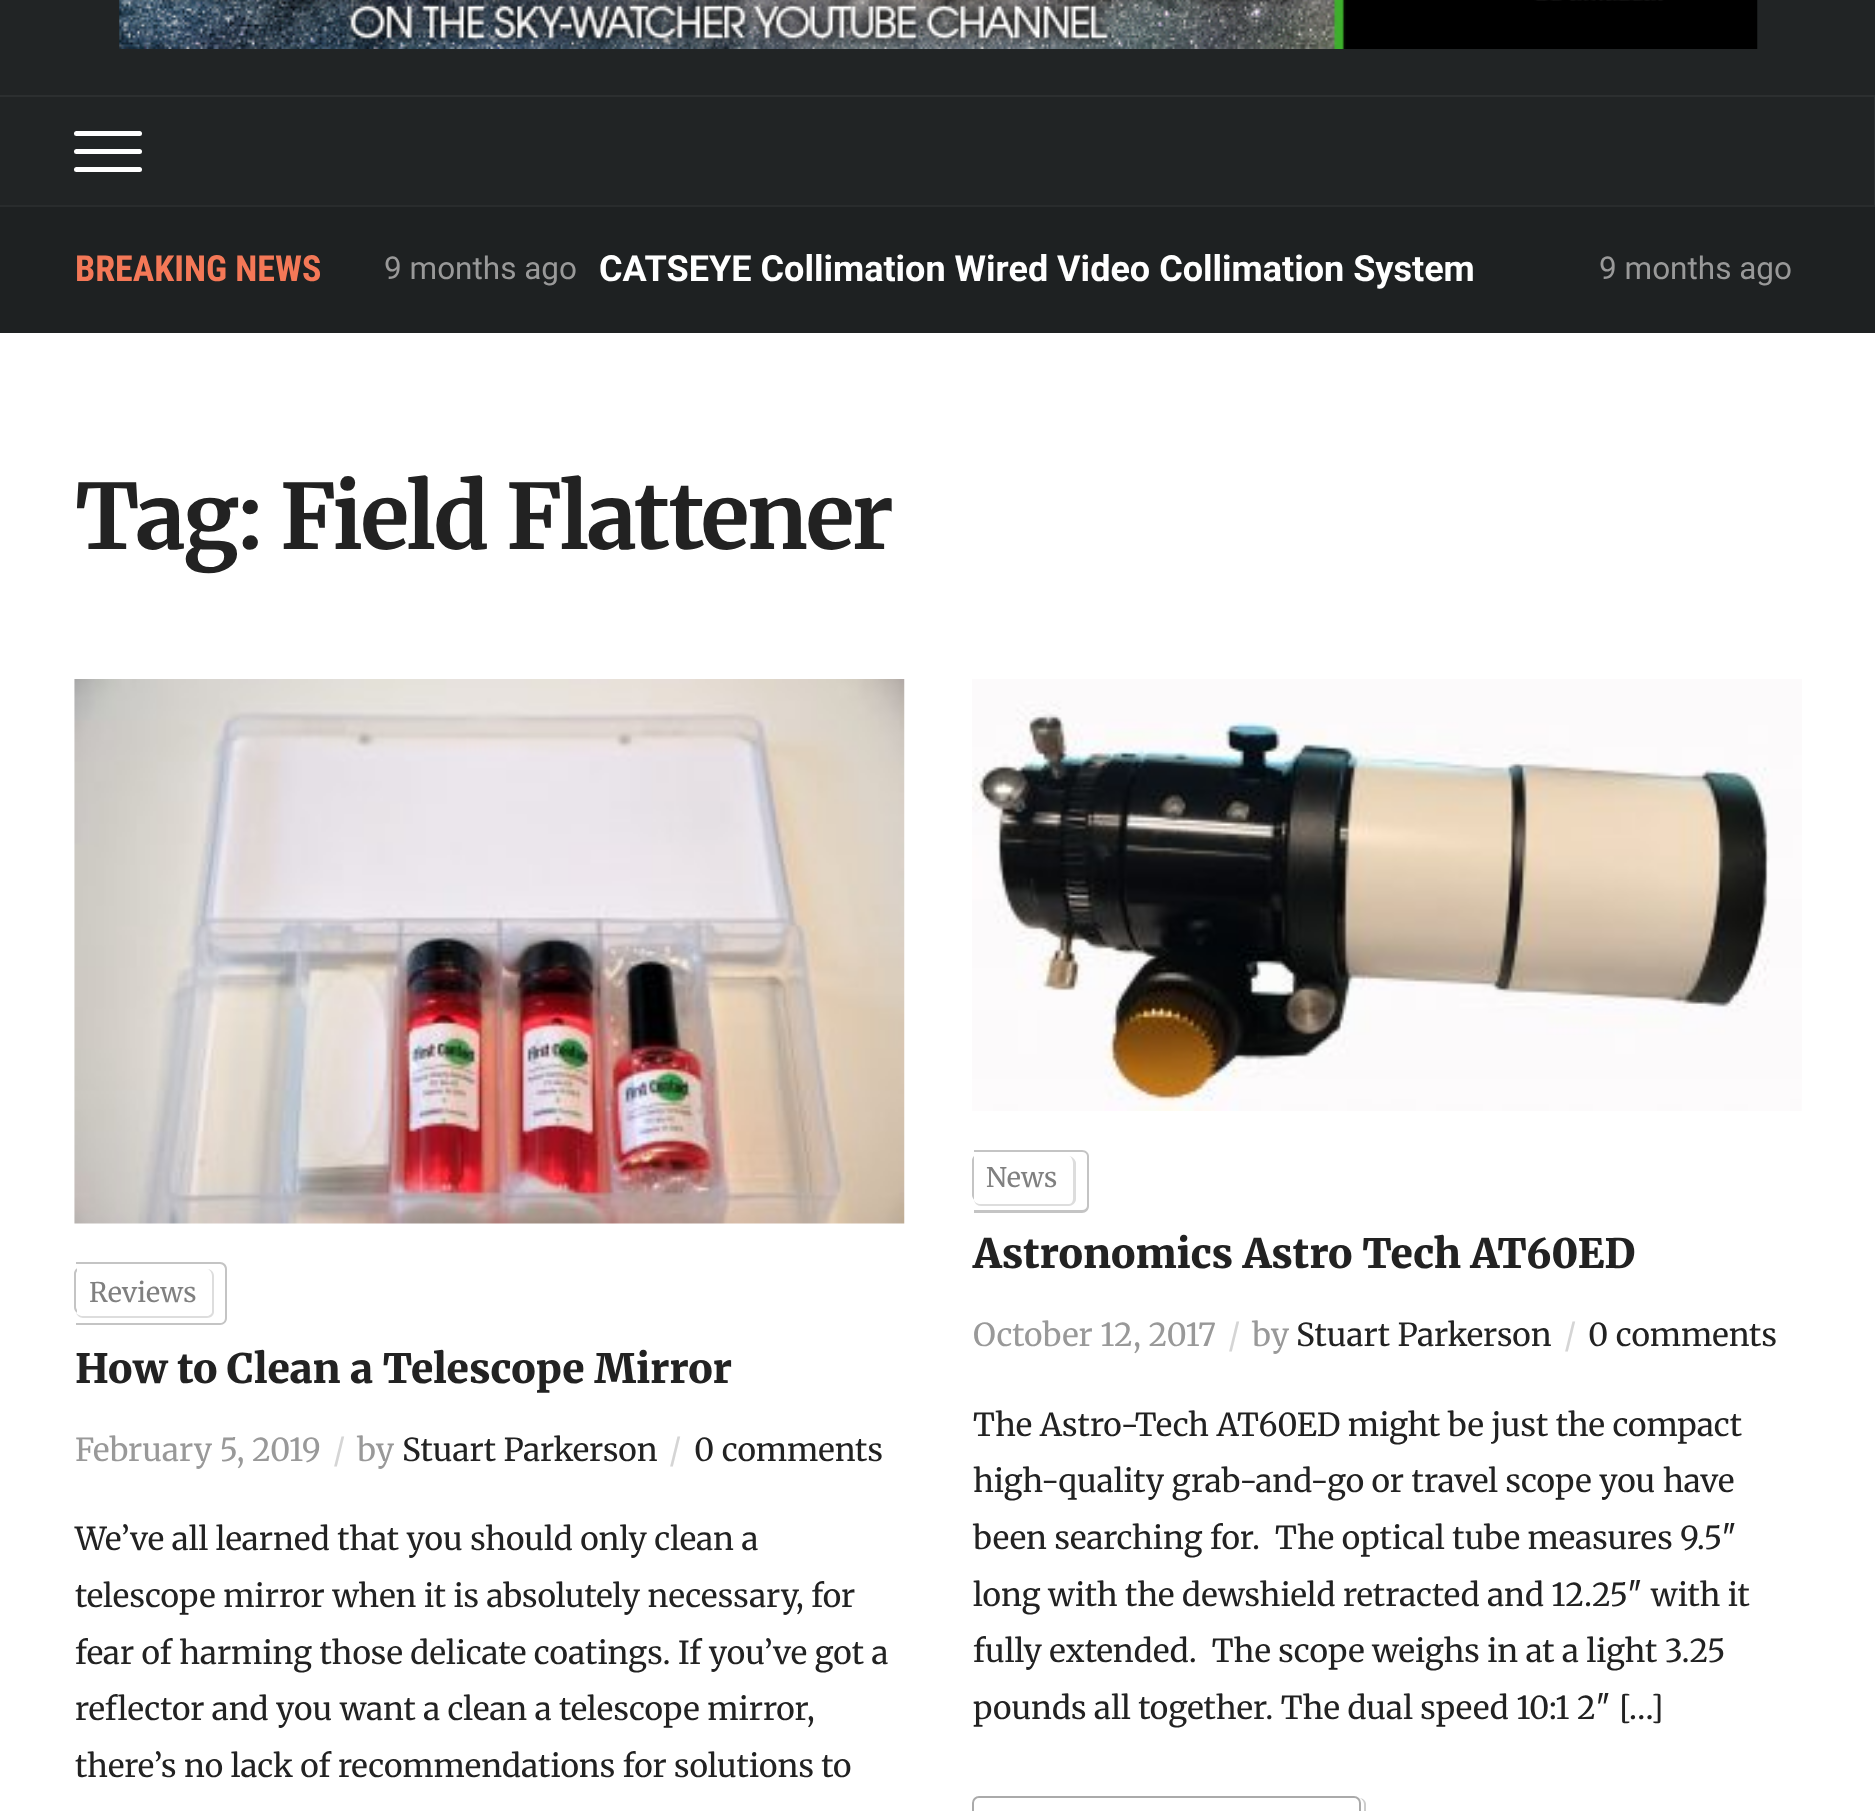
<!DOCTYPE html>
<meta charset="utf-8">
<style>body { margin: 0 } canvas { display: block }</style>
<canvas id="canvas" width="1875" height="1811"></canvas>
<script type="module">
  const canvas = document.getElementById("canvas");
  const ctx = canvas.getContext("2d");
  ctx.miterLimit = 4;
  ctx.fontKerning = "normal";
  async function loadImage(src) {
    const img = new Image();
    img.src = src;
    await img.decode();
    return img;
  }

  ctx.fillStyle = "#ffffff";
  ctx.fillRect(0, 0, 1875, 1811);
  ctx.fillStyle = "#212425";
  ctx.fillRect(0, 0, 1875, 205);
  ctx.drawImage(await loadImage("img1.png"), 119, 0, 1639, 49);
  ctx.fillStyle = "#2c2f30";
  ctx.fillRect(0, 95, 1875, 2);
  ctx.fillRect(1874, 97, 1, 108);
  ctx.fillStyle = "#ffffff";
  ctx.beginPath();
  ctx.roundRect(74, 131, 68, 5, 2.5);
  ctx.fill();
  ctx.beginPath();
  ctx.roundRect(74, 149, 68, 5, 2.5);
  ctx.fill();
  ctx.beginPath();
  ctx.roundRect(74, 167, 68, 5, 2.5);
  ctx.fill();
  ctx.fillStyle = "#1e2122";
  ctx.fillRect(0, 207, 1875, 126);
  ctx.fillStyle = "#292c2d";
  ctx.fillRect(0, 205, 1875, 2);
  ctx.font = "bold 36px Roboto Condensed";
  ctx.fillStyle = "#f47857";
  ctx.fillText("BREAKING NEWS", 75, 281);
  ctx.font = "31.5px Roboto";
  ctx.fillStyle = "#999999";
  ctx.fillText("9 months ago", 384, 279);
  ctx.font = "bold 36px Roboto";
  ctx.fillStyle = "#ffffff";
  ctx.fillText("CATSEYE Collimation Wired Video Collimation System", 599, 281);
  ctx.font = "31.5px Roboto";
  ctx.fillStyle = "#999999";
  ctx.fillText("9 months ago", 1599, 279);
  ctx.letterSpacing = "-2.25px";
  ctx.font = "bold 90px Merriweather";
  ctx.fillStyle = "#222222";
  ctx.fillText("Tag: Field Flattener", 75, 549);
  ctx.drawImage(await loadImage("img2.png"), 74, 679, 831, 545);
  ctx.fillStyle = "#c4c4c4";
  ctx.beginPath();
  ctx.moveTo(81, 1267);
  ctx.lineTo(196, 1267);
  ctx.lineTo(196, 1314);
  ctx.lineTo(81, 1314);
  ctx.bezierCurveTo(77, 1314, 74, 1311, 74, 1307);
  ctx.lineTo(74, 1274);
  ctx.bezierCurveTo(74, 1270, 77, 1267, 81, 1267);
  ctx.closePath();
  ctx.moveTo(81, 1269);
  ctx.lineTo(196, 1269);
  ctx.lineTo(196, 1312);
  ctx.lineTo(81, 1312);
  ctx.bezierCurveTo(79, 1312, 76, 1310, 76, 1307);
  ctx.lineTo(76, 1274);
  ctx.bezierCurveTo(76, 1271, 79, 1269, 81, 1269);
  ctx.closePath();
  ctx.fill("evenodd");
  ctx.fillStyle = "#ffffff";
  ctx.beginPath();
  ctx.roundRect(77, 1262, 150, 63, [0, 7, 7, 0]);
  ctx.fill();
  ctx.fillStyle = "#c4c4c4";
  ctx.beginPath();
  ctx.moveTo(76, 1262);
  ctx.lineTo(220, 1262);
  ctx.bezierCurveTo(224, 1262, 227, 1265, 227, 1269);
  ctx.lineTo(227, 1318);
  ctx.bezierCurveTo(227, 1322, 224, 1325, 220, 1325);
  ctx.lineTo(76, 1325);
  ctx.closePath();
  ctx.moveTo(76, 1264);
  ctx.lineTo(220, 1264);
  ctx.bezierCurveTo(223, 1264, 225, 1267, 225, 1269);
  ctx.lineTo(225, 1318);
  ctx.bezierCurveTo(225, 1321, 223, 1323, 220, 1323);
  ctx.lineTo(76, 1323);
  ctx.closePath();
  ctx.fill("evenodd");
  ctx.letterSpacing = "0px";
  ctx.font = "27px Merriweather";
  ctx.fillStyle = "#808080";
  ctx.fillText("Reviews", 89, 1302);
  ctx.fillStyle = "#dddddd";
  ctx.beginPath();
  ctx.moveTo(83, 1269);
  ctx.lineTo(207, 1269);
  ctx.bezierCurveTo(211, 1269, 214, 1272, 214, 1276);
  ctx.lineTo(214, 1312);
  ctx.bezierCurveTo(214, 1315, 211, 1318, 207, 1318);
  ctx.lineTo(83, 1318);
  ctx.bezierCurveTo(80, 1318, 76, 1315, 76, 1312);
  ctx.lineTo(76, 1276);
  ctx.bezierCurveTo(76, 1272, 80, 1269, 83, 1269);
  ctx.closePath();
  ctx.moveTo(83, 1269);
  ctx.lineTo(207, 1269);
  ctx.bezierCurveTo(209, 1269, 212, 1272, 212, 1276);
  ctx.lineTo(212, 1312);
  ctx.bezierCurveTo(212, 1314, 209, 1316, 207, 1316);
  ctx.lineTo(83, 1316);
  ctx.bezierCurveTo(80, 1316, 76, 1314, 76, 1312);
  ctx.lineTo(76, 1276);
  ctx.bezierCurveTo(76, 1272, 80, 1269, 83, 1269);
  ctx.closePath();
  ctx.fill("evenodd");
  ctx.font = "900 40.5px Merriweather";
  ctx.fillStyle = "#222222";
  ctx.fillText("How to Clean a Telescope Mirror", 75, 1383);
  ctx.font = "31.5px Merriweather";
  ctx.fillStyle = "#999999";
  ctx.fillText("February 5, 2019", 75, 1461);
  ctx.fillStyle = "#d5d5d5";
  ctx.fillText("/", 333, 1461);
  ctx.fillStyle = "#999999";
  ctx.fillText("by", 357, 1461);
  ctx.fillStyle = "#222222";
  ctx.fillText("Stuart Parkerson", 402, 1461);
  ctx.fillStyle = "#d5d5d5";
  ctx.fillText("/", 669, 1461);
  ctx.fillStyle = "#222222";
  ctx.fillText("0 comments", 694, 1461);
  ctx.fillText("We’ve all learned that you should only clean a", 75, 1550);
  ctx.fillText("telescope mirror when it is absolutely necessary, for", 75, 1607);
  ctx.fillText("fear of harming those delicate coatings. If you’ve got a", 75, 1664);
  ctx.fillText("reflector and you want a clean a telescope mirror,", 75, 1720);
  ctx.fillText("there’s no lack of recommendations for solutions to", 75, 1777);
  ctx.drawImage(await loadImage("img3.png"), 972, 679, 830, 432);
  ctx.fillStyle = "#c4c4c4";
  ctx.beginPath();
  ctx.moveTo(979, 1154);
  ctx.lineTo(1058, 1154);
  ctx.lineTo(1058, 1202);
  ctx.lineTo(979, 1202);
  ctx.bezierCurveTo(975, 1202, 972, 1198, 972, 1195);
  ctx.lineTo(972, 1161);
  ctx.bezierCurveTo(972, 1157, 975, 1154, 979, 1154);
  ctx.closePath();
  ctx.moveTo(979, 1156);
  ctx.lineTo(1058, 1156);
  ctx.lineTo(1058, 1199);
  ctx.lineTo(979, 1199);
  ctx.bezierCurveTo(976, 1199, 974, 1197, 974, 1195);
  ctx.lineTo(974, 1161);
  ctx.bezierCurveTo(974, 1159, 976, 1156, 979, 1156);
  ctx.closePath();
  ctx.fill("evenodd");
  ctx.fillStyle = "#ffffff";
  ctx.beginPath();
  ctx.roundRect(974, 1150, 115, 63, [0, 7, 7, 0]);
  ctx.fill();
  ctx.fillStyle = "#c4c4c4";
  ctx.beginPath();
  ctx.moveTo(974, 1150);
  ctx.lineTo(1082, 1150);
  ctx.bezierCurveTo(1086, 1150, 1089, 1153, 1089, 1156);
  ctx.lineTo(1089, 1206);
  ctx.bezierCurveTo(1089, 1210, 1086, 1213, 1082, 1213);
  ctx.lineTo(974, 1213);
  ctx.closePath();
  ctx.moveTo(974, 1152);
  ctx.lineTo(1082, 1152);
  ctx.bezierCurveTo(1085, 1152, 1087, 1154, 1087, 1156);
  ctx.lineTo(1087, 1206);
  ctx.bezierCurveTo(1087, 1208, 1085, 1210, 1082, 1210);
  ctx.lineTo(974, 1210);
  ctx.closePath();
  ctx.fill("evenodd");
  ctx.font = "27px Merriweather";
  ctx.fillStyle = "#808080";
  ctx.fillText("News", 986, 1187);
  ctx.fillStyle = "#dddddd";
  ctx.beginPath();
  ctx.moveTo(981, 1156);
  ctx.lineTo(1069, 1156);
  ctx.bezierCurveTo(1072, 1156, 1076, 1160, 1076, 1163);
  ctx.lineTo(1076, 1199);
  ctx.bezierCurveTo(1076, 1203, 1072, 1206, 1069, 1206);
  ctx.lineTo(981, 1206);
  ctx.bezierCurveTo(977, 1206, 974, 1203, 974, 1199);
  ctx.lineTo(974, 1163);
  ctx.bezierCurveTo(974, 1160, 977, 1156, 981, 1156);
  ctx.closePath();
  ctx.moveTo(981, 1156);
  ctx.lineTo(1069, 1156);
  ctx.bezierCurveTo(1071, 1156, 1073, 1160, 1073, 1163);
  ctx.lineTo(1073, 1199);
  ctx.bezierCurveTo(1073, 1202, 1071, 1204, 1069, 1204);
  ctx.lineTo(981, 1204);
  ctx.bezierCurveTo(977, 1204, 974, 1202, 974, 1199);
  ctx.lineTo(974, 1163);
  ctx.bezierCurveTo(974, 1160, 977, 1156, 981, 1156);
  ctx.closePath();
  ctx.fill("evenodd");
  ctx.font = "900 40.5px Merriweather";
  ctx.fillStyle = "#222222";
  ctx.fillText("Astronomics Astro Tech AT60ED", 973, 1268);
  ctx.font = "31.5px Merriweather";
  ctx.fillStyle = "#999999";
  ctx.fillText("October 12, 2017", 973, 1346);
  ctx.fillStyle = "#d5d5d5";
  ctx.fillText("/", 1228, 1346);
  ctx.fillStyle = "#999999";
  ctx.fillText("by", 1252, 1346);
  ctx.fillStyle = "#222222";
  ctx.fillText("Stuart Parkerson", 1296, 1346);
  ctx.fillStyle = "#d5d5d5";
  ctx.fillText("/", 1564, 1346);
  ctx.fillStyle = "#222222";
  ctx.fillText("0 comments", 1588, 1346);
  ctx.fillText("The Astro-Tech AT60ED might be just the compact", 973, 1436);
  ctx.fillText("high-quality grab-and-go or travel scope you have", 973, 1492);
  ctx.fillText("been searching for.  The optical tube measures 9.5″", 973, 1549);
  ctx.fillText("long with the dewshield retracted and 12.25″ with it", 973, 1606);
  ctx.fillText("fully extended.  The scope weighs in at a light 3.25", 973, 1662);
  ctx.fillText("pounds all together. The dual speed 10:1 2″ […]", 973, 1719);
  ctx.beginPath();
  ctx.roundRect(973, 1797, 387, 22, 6);
  ctx.strokeStyle = "#aaaaaa";
  ctx.lineWidth = 2;
  ctx.stroke();
  ctx.fillStyle = "#cccccc";
  ctx.beginPath();
  ctx.moveTo(981, 1798);
  ctx.lineTo(1359, 1798);
  ctx.bezierCurveTo(1363, 1798, 1366, 1801, 1366, 1804);
  ctx.lineTo(1366, 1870);
  ctx.bezierCurveTo(1366, 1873, 1363, 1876, 1359, 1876);
  ctx.lineTo(981, 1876);
  ctx.bezierCurveTo(977, 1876, 974, 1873, 974, 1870);
  ctx.lineTo(974, 1804);
  ctx.bezierCurveTo(974, 1801, 977, 1798, 981, 1798);
  ctx.closePath();
  ctx.moveTo(981, 1798);
  ctx.lineTo(1359, 1798);
  ctx.bezierCurveTo(1361, 1798, 1364, 1801, 1364, 1804);
  ctx.lineTo(1364, 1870);
  ctx.bezierCurveTo(1364, 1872, 1361, 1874, 1359, 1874);
  ctx.lineTo(981, 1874);
  ctx.bezierCurveTo(977, 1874, 974, 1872, 974, 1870);
  ctx.lineTo(974, 1804);
  ctx.bezierCurveTo(974, 1801, 977, 1798, 981, 1798);
  ctx.closePath();
  ctx.fill("evenodd");
</script>
